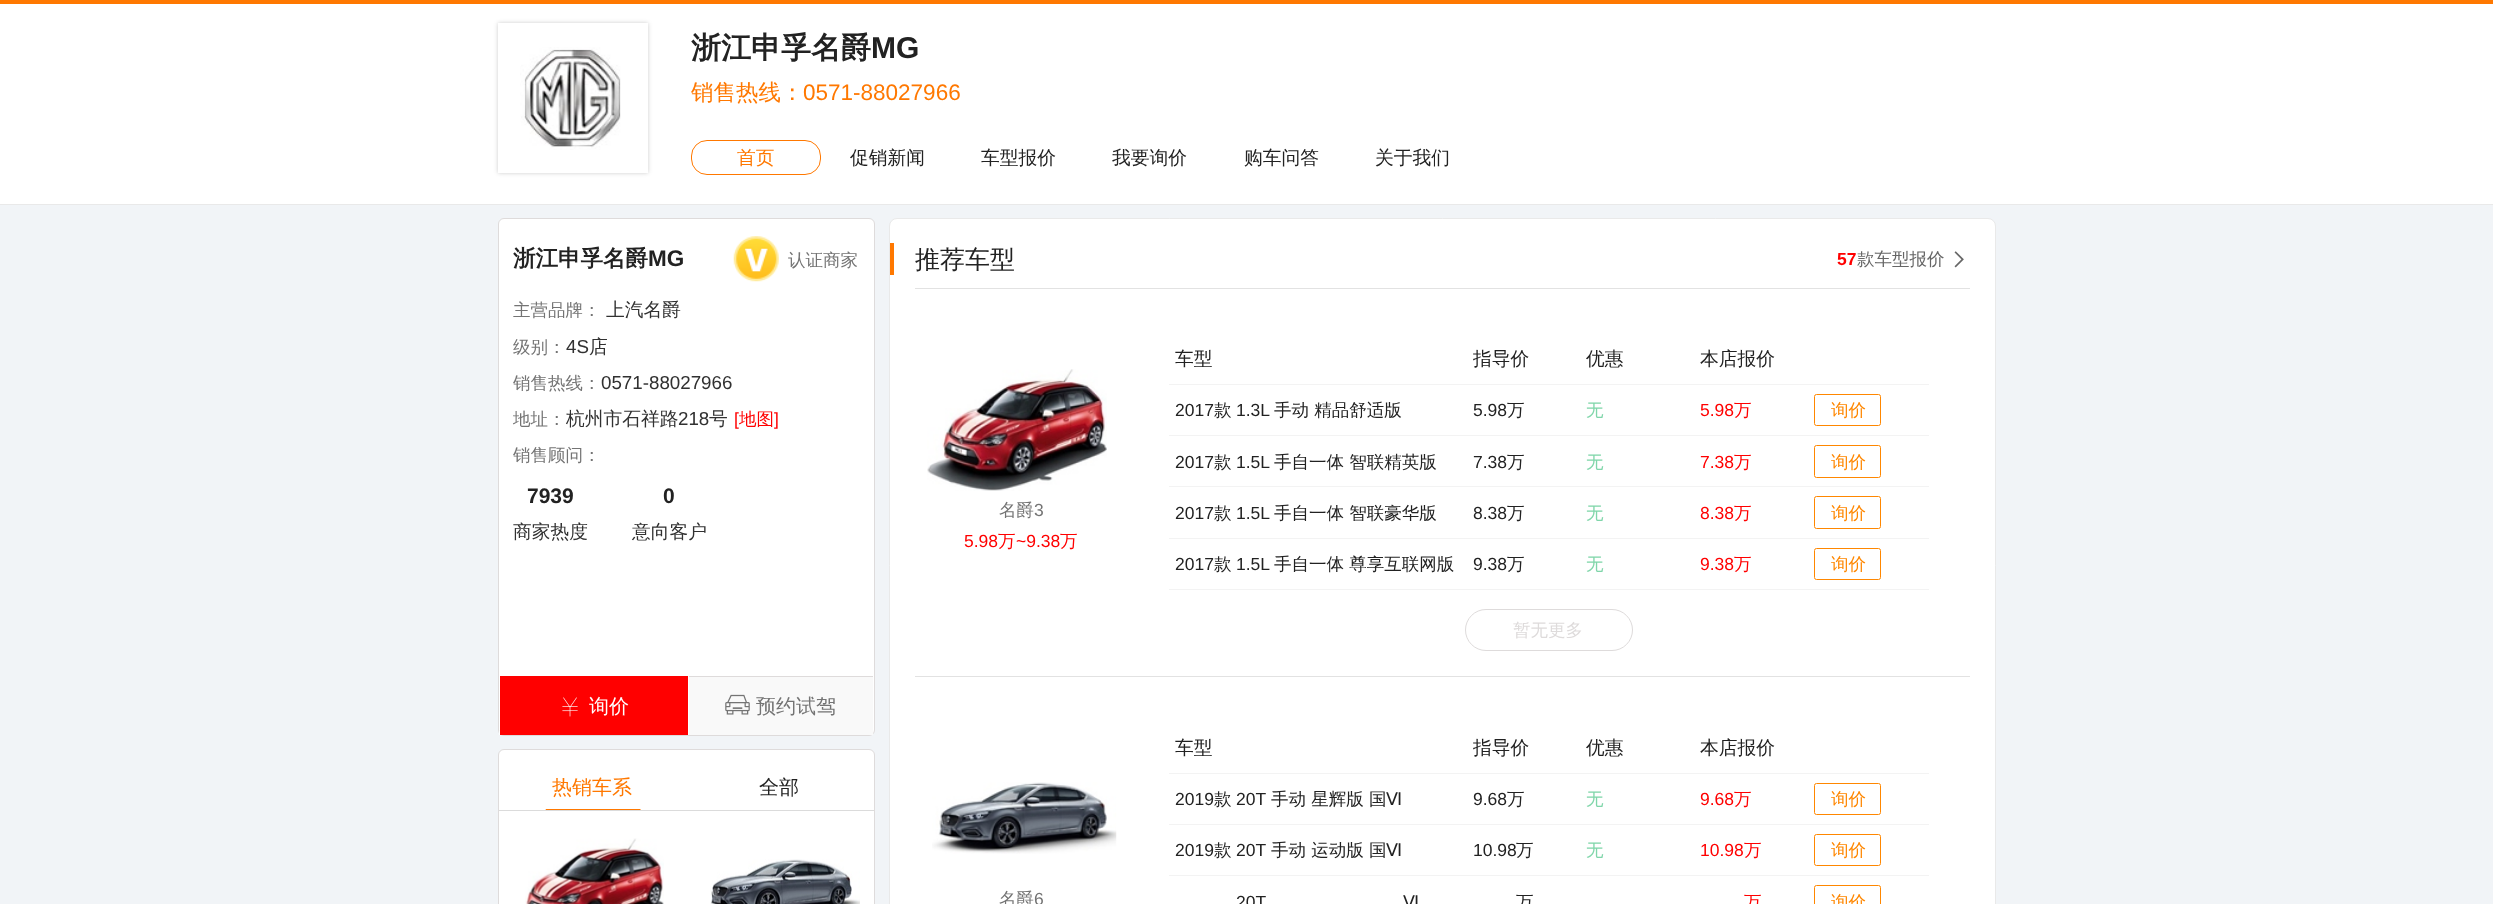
<!DOCTYPE html>
<meta charset="utf-8">
<style>body { margin: 0 } canvas { display: block }</style>
<canvas id="canvas" width="2493" height="904"></canvas>
<script type="module">
  const canvas = document.getElementById("canvas");
  const ctx = canvas.getContext("2d");
  ctx.miterLimit = 4;
  ctx.fontKerning = "normal";
  async function loadImage(src) {
    const img = new Image();
    img.src = src;
    await img.decode();
    return img;
  }

  ctx.fillStyle = "#f1f4f7";
  ctx.fillRect(0, 0, 2493, 904);
  ctx.fillStyle = "#ffffff";
  ctx.fillRect(0, 4, 2493, 200);
  ctx.fillStyle = "#ff7800";
  ctx.fillRect(0, 0, 2493, 4);
  ctx.fillStyle = "#e9e9e9";
  ctx.fillRect(0, 204, 2493, 1);
  ctx.fillStyle = "rgba(0, 0, 0, 0.2)";
  ctx.filter = "blur(2px)";
  ctx.beginPath();
  ctx.rect(498, 23, 150, 150);
  ctx.fill();
  ctx.filter = "none";
  ctx.fillStyle = "#ffffff";
  ctx.fillRect(498, 23, 150, 150);
  ctx.drawImage(await loadImage("img1.png"), 520, 47, 101, 103);
  ctx.font = "bold 30px WenQuanYi Zen Hei";
  ctx.fillStyle = "#222222";
  ctx.fillText("浙江申孚名爵", 691, 58);
  ctx.font = "bold 30px Liberation Sans";
  ctx.fillText("MG", 871, 58);
  ctx.font = "500 22.5px WenQuanYi Zen Hei";
  ctx.fillStyle = "#ff7800";
  ctx.fillText("销售热线：", 691, 100);
  ctx.font = "22.5px Liberation Sans";
  ctx.fillText("0571-88027966", 803, 100);
  ctx.beginPath();
  ctx.roundRect(691.5, 140.5, 129, 34, 15.5);
  ctx.strokeStyle = "#ff7800";
  ctx.stroke();
  ctx.font = "500 18.75px WenQuanYi Zen Hei";
  ctx.fillText("首页", 737, 164);
  ctx.fillStyle = "#222222";
  ctx.fillText("促销新闻", 850, 164);
  ctx.fillText("车型报价", 981, 164);
  ctx.fillText("我要询价", 1112, 164);
  ctx.fillText("购车问答", 1244, 164);
  ctx.fillText("关于我们", 1375, 164);
  ctx.fillStyle = "#ffffff";
  ctx.beginPath();
  ctx.roundRect(498.5, 218.5, 376, 517, 5.5);
  ctx.fill();
  ctx.strokeStyle = "#dedbdb";
  ctx.stroke();
  ctx.font = "bold 22.5px WenQuanYi Zen Hei";
  ctx.fillStyle = "#222222";
  ctx.fillText("浙江申孚名爵", 513, 266);
  ctx.font = "bold 22.5px Liberation Sans";
  ctx.fillText("MG", 648, 266);
  ctx.drawImage(await loadImage("img2.png"), 733, 236, 46, 46);
  ctx.font = "500 17.5px WenQuanYi Zen Hei";
  ctx.fillStyle = "#747474";
  ctx.fillText("认证商家", 788, 266);
  ctx.fillText("主营品牌：", 513, 316);
  ctx.font = "500 18.75px WenQuanYi Zen Hei";
  ctx.fillStyle = "#313131";
  ctx.fillText("上汽名爵", 606, 316);
  ctx.font = "500 17.5px WenQuanYi Zen Hei";
  ctx.fillStyle = "#747474";
  ctx.fillText("级别：", 513, 353);
  ctx.font = "18.75px Liberation Sans";
  ctx.fillStyle = "#313131";
  ctx.fillText("4S", 566, 353);
  ctx.font = "500 18.75px WenQuanYi Zen Hei";
  ctx.fillText("店", 589, 353);
  ctx.font = "500 17.5px WenQuanYi Zen Hei";
  ctx.fillStyle = "#747474";
  ctx.fillText("销售热线：", 513, 389);
  ctx.font = "18.75px Liberation Sans";
  ctx.fillStyle = "#313131";
  ctx.fillText("0571-88027966", 601, 389);
  ctx.font = "500 17.5px WenQuanYi Zen Hei";
  ctx.fillStyle = "#747474";
  ctx.fillText("地址：", 513, 425);
  ctx.font = "500 18.75px WenQuanYi Zen Hei";
  ctx.fillStyle = "#313131";
  ctx.fillText("杭州市石祥路", 566, 425);
  ctx.font = "18.75px Liberation Sans";
  ctx.fillText("218", 678, 425);
  ctx.font = "500 18.75px WenQuanYi Zen Hei";
  ctx.fillText("号", 709, 425);
  ctx.font = "17.5px Liberation Sans";
  ctx.fillStyle = "#ff0000";
  ctx.fillText("[", 734, 425);
  ctx.font = "500 17.5px WenQuanYi Zen Hei";
  ctx.fillText("地图", 739, 425);
  ctx.font = "17.5px Liberation Sans";
  ctx.fillText("]", 774, 425);
  ctx.font = "500 17.5px WenQuanYi Zen Hei";
  ctx.fillStyle = "#747474";
  ctx.fillText("销售顾问：", 513, 461);
  ctx.font = "bold 21px Liberation Sans";
  ctx.fillStyle = "#222222";
  ctx.fillText("7939", 527, 503);
  ctx.font = "500 18.75px WenQuanYi Zen Hei";
  ctx.fillStyle = "#313131";
  ctx.fillText("商家热度", 513, 538);
  ctx.font = "bold 21px Liberation Sans";
  ctx.fillStyle = "#222222";
  ctx.fillText("0", 663, 503);
  ctx.font = "500 18.75px WenQuanYi Zen Hei";
  ctx.fillStyle = "#313131";
  ctx.fillText("意向客户", 632, 538);
  ctx.fillStyle = "#ff0000";
  ctx.fillRect(500, 676, 188, 59);
  ctx.fillStyle = "#ffffff";
  ctx.fillRect(499, 731, 1, 4);
  ctx.drawImage(await loadImage("img3.png"), 562, 697, 16, 20);
  ctx.font = "500 20px WenQuanYi Zen Hei";
  ctx.fillText("询价", 589, 713);
  ctx.fillStyle = "#f9f9f9";
  ctx.fillRect(689, 677, 184, 58);
  ctx.fillStyle = "#dedbdb";
  ctx.fillRect(688, 676, 185, 1);
  ctx.fillStyle = "#ffffff";
  ctx.fillRect(688, 676, 1, 1);
  ctx.drawImage(await loadImage("img4.png"), 725, 694, 25, 21);
  ctx.fillStyle = "#747474";
  ctx.fillText("预约试驾", 756, 713);
  ctx.fillStyle = "#ffffff";
  ctx.beginPath();
  ctx.roundRect(498.5, 749.5, 376, 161, 5.5);
  ctx.fill();
  ctx.stroke();
  ctx.fillStyle = "#dbdbdb";
  ctx.fillRect(499, 810, 375, 1);
  ctx.fillStyle = "#ff7800";
  ctx.fillText("热销车系", 552, 794);
  ctx.beginPath();
  ctx.moveTo(641, 810);
  ctx.lineTo(545, 810);
  ctx.lineTo(546, 809);
  ctx.lineTo(640, 809);
  ctx.closePath();
  ctx.fill();
  ctx.fillStyle = "#ffffff";
  ctx.beginPath();
  ctx.moveTo(545, 810);
  ctx.lineTo(545, 807.5);
  ctx.lineTo(546, 809);
  ctx.closePath();
  ctx.fill();
  ctx.fillStyle = "#222222";
  ctx.fillText("全部", 759, 794);
  ctx.drawImage(await loadImage("img5.png"), 525, 838, 139, 66);
  ctx.drawImage(await loadImage("img6.png"), 710, 859, 150, 45);
  ctx.fillStyle = "#ffffff";
  ctx.beginPath();
  ctx.roundRect(889.5, 218.5, 1106, 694, 7.5);
  ctx.fill();
  ctx.strokeStyle = "#e9e9e9";
  ctx.stroke();
  ctx.fillStyle = "#ff7800";
  ctx.fillRect(890, 243, 4, 32);
  ctx.font = "500 25px WenQuanYi Zen Hei";
  ctx.fillStyle = "#222222";
  ctx.fillText("推荐车型", 915, 268);
  ctx.font = "bold 17.5px Liberation Sans";
  ctx.fillStyle = "#ff0000";
  ctx.fillText("57", 1837, 265);
  ctx.font = "500 17.5px WenQuanYi Zen Hei";
  ctx.fillStyle = "#666666";
  ctx.fillText("款车型报价", 1857, 265);
  ctx.drawImage(await loadImage("img7.png"), 1954, 251, 10, 17);
  ctx.fillStyle = "#e2e2e2";
  ctx.fillRect(915, 288, 1055, 1);
  ctx.drawImage(await loadImage("img8.png"), 927, 369, 180, 122);
  ctx.fillStyle = "#747474";
  ctx.fillText("名爵", 999, 516);
  ctx.font = "17.5px Liberation Sans";
  ctx.fillText("3", 1034, 516);
  ctx.fillStyle = "#ff0000";
  ctx.fillText("5.98", 964, 547);
  ctx.font = "500 17.5px WenQuanYi Zen Hei";
  ctx.fillText("万", 998, 547);
  ctx.font = "17.5px Liberation Sans";
  ctx.fillText("~9.38", 1016, 547);
  ctx.font = "500 17.5px WenQuanYi Zen Hei";
  ctx.fillText("万", 1060, 547);
  ctx.fillStyle = "#f3f3f3";
  ctx.fillRect(1169, 384, 760, 1);
  ctx.font = "500 18.75px WenQuanYi Zen Hei";
  ctx.fillStyle = "#222222";
  ctx.fillText("车型", 1175, 365);
  ctx.fillText("指导价", 1473, 365);
  ctx.fillText("优惠", 1586, 365);
  ctx.fillText("本店报价", 1700, 365);
  ctx.fillStyle = "#f3f3f3";
  ctx.fillRect(1169, 435, 760, 1);
  ctx.font = "17.5px Liberation Sans";
  ctx.fillStyle = "#222222";
  ctx.fillText("2017", 1175, 416);
  ctx.font = "500 17.5px WenQuanYi Zen Hei";
  ctx.fillText("款", 1214, 416);
  ctx.font = "17.5px Liberation Sans";
  ctx.fillText("1.3L", 1236, 416);
  ctx.font = "500 17.5px WenQuanYi Zen Hei";
  ctx.fillText("手动 精品舒适版", 1274, 416);
  ctx.font = "17.5px Liberation Sans";
  ctx.fillText("5.98", 1473, 416);
  ctx.font = "500 17.5px WenQuanYi Zen Hei";
  ctx.fillText("万", 1507, 416);
  ctx.fillStyle = "#80d6aa";
  ctx.fillText("无", 1586, 416);
  ctx.font = "17.5px Liberation Sans";
  ctx.fillStyle = "#ff0000";
  ctx.fillText("5.98", 1700, 416);
  ctx.font = "500 17.5px WenQuanYi Zen Hei";
  ctx.fillText("万", 1734, 416);
  ctx.beginPath();
  ctx.roundRect(1814.5, 394.5, 66, 31, 2);
  ctx.strokeStyle = "#ff8700";
  ctx.stroke();
  ctx.fillStyle = "#ff8700";
  ctx.fillText("询价", 1831, 416);
  ctx.fillStyle = "#f3f3f3";
  ctx.fillRect(1169, 486, 760, 1);
  ctx.font = "17.5px Liberation Sans";
  ctx.fillStyle = "#222222";
  ctx.fillText("2017", 1175, 468);
  ctx.font = "500 17.5px WenQuanYi Zen Hei";
  ctx.fillText("款", 1214, 468);
  ctx.font = "17.5px Liberation Sans";
  ctx.fillText("1.5L", 1236, 468);
  ctx.font = "500 17.5px WenQuanYi Zen Hei";
  ctx.fillText("手自一体 智联精英版", 1274, 468);
  ctx.font = "17.5px Liberation Sans";
  ctx.fillText("7.38", 1473, 468);
  ctx.font = "500 17.5px WenQuanYi Zen Hei";
  ctx.fillText("万", 1507, 468);
  ctx.fillStyle = "#80d6aa";
  ctx.fillText("无", 1586, 468);
  ctx.font = "17.5px Liberation Sans";
  ctx.fillStyle = "#ff0000";
  ctx.fillText("7.38", 1700, 468);
  ctx.font = "500 17.5px WenQuanYi Zen Hei";
  ctx.fillText("万", 1734, 468);
  ctx.beginPath();
  ctx.roundRect(1814.5, 445.5, 66, 32, 2);
  ctx.stroke();
  ctx.fillStyle = "#ff8700";
  ctx.fillText("询价", 1831, 468);
  ctx.fillStyle = "#f3f3f3";
  ctx.fillRect(1169, 538, 760, 1);
  ctx.font = "17.5px Liberation Sans";
  ctx.fillStyle = "#222222";
  ctx.fillText("2017", 1175, 519);
  ctx.font = "500 17.5px WenQuanYi Zen Hei";
  ctx.fillText("款", 1214, 519);
  ctx.font = "17.5px Liberation Sans";
  ctx.fillText("1.5L", 1236, 519);
  ctx.font = "500 17.5px WenQuanYi Zen Hei";
  ctx.fillText("手自一体 智联豪华版", 1274, 519);
  ctx.font = "17.5px Liberation Sans";
  ctx.fillText("8.38", 1473, 519);
  ctx.font = "500 17.5px WenQuanYi Zen Hei";
  ctx.fillText("万", 1507, 519);
  ctx.fillStyle = "#80d6aa";
  ctx.fillText("无", 1586, 519);
  ctx.font = "17.5px Liberation Sans";
  ctx.fillStyle = "#ff0000";
  ctx.fillText("8.38", 1700, 519);
  ctx.font = "500 17.5px WenQuanYi Zen Hei";
  ctx.fillText("万", 1734, 519);
  ctx.beginPath();
  ctx.roundRect(1814.5, 496.5, 66, 32, 2);
  ctx.stroke();
  ctx.fillStyle = "#ff8700";
  ctx.fillText("询价", 1831, 519);
  ctx.fillStyle = "#f3f3f3";
  ctx.fillRect(1169, 589, 760, 1);
  ctx.font = "17.5px Liberation Sans";
  ctx.fillStyle = "#222222";
  ctx.fillText("2017", 1175, 570);
  ctx.font = "500 17.5px WenQuanYi Zen Hei";
  ctx.fillText("款", 1214, 570);
  ctx.font = "17.5px Liberation Sans";
  ctx.fillText("1.5L", 1236, 570);
  ctx.font = "500 17.5px WenQuanYi Zen Hei";
  ctx.fillText("手自一体 尊享互联网版", 1274, 570);
  ctx.font = "17.5px Liberation Sans";
  ctx.fillText("9.38", 1473, 570);
  ctx.font = "500 17.5px WenQuanYi Zen Hei";
  ctx.fillText("万", 1507, 570);
  ctx.fillStyle = "#80d6aa";
  ctx.fillText("无", 1586, 570);
  ctx.font = "17.5px Liberation Sans";
  ctx.fillStyle = "#ff0000";
  ctx.fillText("9.38", 1700, 570);
  ctx.font = "500 17.5px WenQuanYi Zen Hei";
  ctx.fillText("万", 1734, 570);
  ctx.beginPath();
  ctx.roundRect(1814.5, 548.5, 66, 31, 2);
  ctx.stroke();
  ctx.fillStyle = "#ff8700";
  ctx.fillText("询价", 1831, 570);
  ctx.beginPath();
  ctx.roundRect(1465.5, 609.5, 167, 41, 20.5);
  ctx.strokeStyle = "#dedbdb";
  ctx.stroke();
  ctx.fillStyle = "#dedbdb";
  ctx.fillText("暂无更多", 1513, 636);
  ctx.fillStyle = "#e2e2e2";
  ctx.fillRect(915, 676, 1055, 1);
  ctx.drawImage(await loadImage("img9.png"), 932, 782, 185, 72);
  ctx.fillStyle = "#747474";
  ctx.fillText("名爵", 999, 905);
  ctx.font = "17.5px Liberation Sans";
  ctx.fillText("6", 1034, 905);
  ctx.fillStyle = "#f3f3f3";
  ctx.fillRect(1169, 773, 760, 1);
  ctx.font = "500 18.75px WenQuanYi Zen Hei";
  ctx.fillStyle = "#222222";
  ctx.fillText("车型", 1175, 754);
  ctx.fillText("指导价", 1473, 754);
  ctx.fillText("优惠", 1586, 754);
  ctx.fillText("本店报价", 1700, 754);
  ctx.fillStyle = "#f3f3f3";
  ctx.fillRect(1169, 824, 760, 1);
  ctx.font = "17.5px Liberation Sans";
  ctx.fillStyle = "#222222";
  ctx.fillText("2019", 1175, 805);
  ctx.font = "500 17.5px WenQuanYi Zen Hei";
  ctx.fillText("款", 1214, 805);
  ctx.font = "17.5px Liberation Sans";
  ctx.fillText("20T", 1236, 805);
  ctx.font = "500 17.5px WenQuanYi Zen Hei";
  ctx.fillText("手动 星辉版 国", 1271, 805);
  ctx.font = "17.5px DejaVu Sans";
  ctx.fillText("Ⅵ", 1386, 805);
  ctx.font = "17.5px Liberation Sans";
  ctx.fillText("9.68", 1473, 805);
  ctx.font = "500 17.5px WenQuanYi Zen Hei";
  ctx.fillText("万", 1507, 805);
  ctx.fillStyle = "#80d6aa";
  ctx.fillText("无", 1586, 805);
  ctx.font = "17.5px Liberation Sans";
  ctx.fillStyle = "#ff0000";
  ctx.fillText("9.68", 1700, 805);
  ctx.font = "500 17.5px WenQuanYi Zen Hei";
  ctx.fillText("万", 1734, 805);
  ctx.beginPath();
  ctx.roundRect(1814.5, 783.5, 66, 31, 2);
  ctx.strokeStyle = "#ff8700";
  ctx.stroke();
  ctx.fillStyle = "#ff8700";
  ctx.fillText("询价", 1831, 805);
  ctx.fillStyle = "#f3f3f3";
  ctx.fillRect(1169, 875, 760, 1);
  ctx.font = "17.5px Liberation Sans";
  ctx.fillStyle = "#222222";
  ctx.fillText("2019", 1175, 856);
  ctx.font = "500 17.5px WenQuanYi Zen Hei";
  ctx.fillText("款", 1214, 856);
  ctx.font = "17.5px Liberation Sans";
  ctx.fillText("20T", 1236, 856);
  ctx.font = "500 17.5px WenQuanYi Zen Hei";
  ctx.fillText("手动 运动版 国", 1271, 856);
  ctx.font = "17.5px DejaVu Sans";
  ctx.fillText("Ⅵ", 1386, 856);
  ctx.font = "17.5px Liberation Sans";
  ctx.fillText("10.98", 1473, 856);
  ctx.font = "500 17.5px WenQuanYi Zen Hei";
  ctx.fillText("万", 1516, 856);
  ctx.fillStyle = "#80d6aa";
  ctx.fillText("无", 1586, 856);
  ctx.font = "17.5px Liberation Sans";
  ctx.fillStyle = "#ff0000";
  ctx.fillText("10.98", 1700, 856);
  ctx.font = "500 17.5px WenQuanYi Zen Hei";
  ctx.fillText("万", 1744, 856);
  ctx.beginPath();
  ctx.roundRect(1814.5, 834.5, 66, 31, 2);
  ctx.stroke();
  ctx.fillStyle = "#ff8700";
  ctx.fillText("询价", 1831, 856);
  ctx.font = "17.5px Liberation Sans";
  ctx.fillStyle = "#222222";
  ctx.fillText("20T", 1236, 908);
  ctx.font = "17.5px DejaVu Sans";
  ctx.fillText("Ⅵ", 1403, 908);
  ctx.font = "500 17.5px WenQuanYi Zen Hei";
  ctx.fillText("万", 1516, 908);
  ctx.fillStyle = "#ff0000";
  ctx.fillText("万", 1744, 908);
  ctx.beginPath();
  ctx.roundRect(1814.5, 885.5, 66, 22, 2);
  ctx.stroke();
  ctx.fillStyle = "#ff8700";
  ctx.fillText("询价", 1831, 908);
</script>
